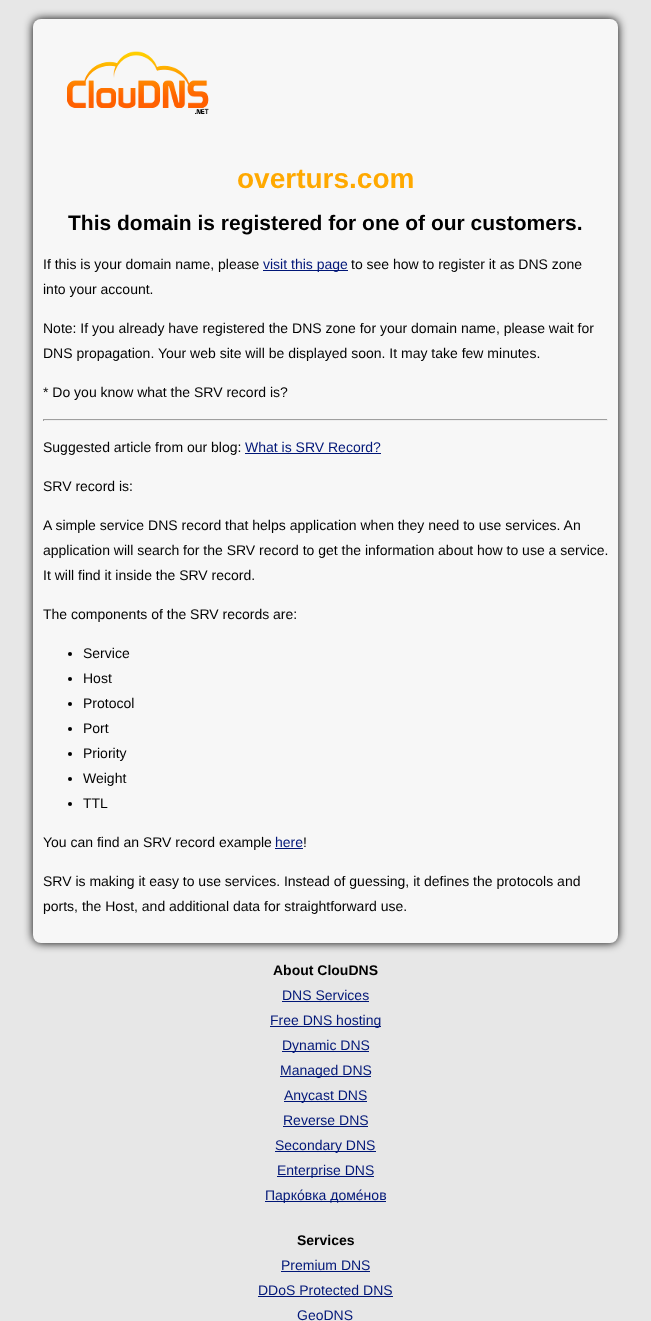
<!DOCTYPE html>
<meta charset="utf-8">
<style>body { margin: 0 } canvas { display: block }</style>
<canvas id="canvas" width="651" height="1321"></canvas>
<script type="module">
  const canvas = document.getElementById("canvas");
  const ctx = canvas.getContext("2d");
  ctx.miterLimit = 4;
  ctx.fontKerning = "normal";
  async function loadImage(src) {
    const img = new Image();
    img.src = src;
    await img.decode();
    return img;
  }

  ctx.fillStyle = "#e7e7e7";
  ctx.fillRect(0, 0, 651, 1321);
  ctx.fillStyle = "#000000";
  ctx.filter = "blur(5px)";
  ctx.beginPath();
  ctx.roundRect(33, 19, 585, 924, 8);
  ctx.fill();
  ctx.filter = "none";
  ctx.fillStyle = "#f7f7f7";
  ctx.beginPath();
  ctx.roundRect(33, 19, 585, 924, 8);
  ctx.fill();
  ctx.drawImage(await loadImage("img1.png"), 67, 51, 142, 63);
  ctx.font = "bold 28px Liberation Sans";
  ctx.fillStyle = "#ffa900";
  ctx.fillText("overturs.com", 237, 188);
  ctx.font = "bold 21px Liberation Sans";
  ctx.fillStyle = "#000000";
  ctx.fillText("This domain is registered for one of our customers.", 68, 230);
  ctx.font = "14px Liberation Sans";
  ctx.fillText("If this is your domain name, please", 43, 269);
  ctx.fillStyle = "#001677";
  ctx.fillRect(263, 270, 85, 1);
  ctx.fillText("visit this page", 263, 269);
  ctx.fillStyle = "#000000";
  ctx.fillText("to see how to register it as DNS zone", 351, 269);
  ctx.fillText("into your account.", 43, 294);
  ctx.fillText("Note: If you already have registered the DNS zone for your domain name, please wait for", 43, 333);
  ctx.fillText("DNS propagation. Your web site will be displayed soon. It may take few minutes.", 43, 358);
  ctx.fillText("* Do you know what the SRV record is?", 43, 397);
  ctx.fillStyle = "#9f9f9f";
  ctx.fillRect(43, 419, 565, 1);
  ctx.fillStyle = "#eeeeee";
  ctx.fillRect(607, 419, 1, 2);
  ctx.fillRect(43, 420, 565, 1);
  ctx.fillStyle = "#9f9f9f";
  ctx.fillRect(43, 419, 1, 2);
  ctx.fillStyle = "#000000";
  ctx.fillText("Suggested article from our blog:", 43, 452);
  ctx.fillStyle = "#001677";
  ctx.fillText("What is SRV Record?", 245, 452);
  ctx.fillRect(245, 453, 136, 1);
  ctx.fillStyle = "#000000";
  ctx.fillText("SRV record is:", 43, 491);
  ctx.fillText("A simple service DNS record that helps application when they need to use services. An", 43, 530);
  ctx.fillText("application will search for the SRV record to get the information about how to use a service.", 43, 555);
  ctx.fillText("It will find it inside the SRV record.", 43, 580);
  ctx.fillText("The components of the SRV records are:", 43, 619);
  ctx.beginPath();
  ctx.arc(70, 654, 2, 0, Math.PI * 2);
  ctx.fill();
  ctx.fillText("Service", 83, 658);
  ctx.beginPath();
  ctx.arc(70, 679, 2, 0, Math.PI * 2);
  ctx.fill();
  ctx.fillText("Host", 83, 683);
  ctx.beginPath();
  ctx.arc(70, 704, 2, 0, Math.PI * 2);
  ctx.fill();
  ctx.fillText("Protocol", 83, 708);
  ctx.beginPath();
  ctx.arc(70, 729, 2, 0, Math.PI * 2);
  ctx.fill();
  ctx.fillText("Port", 83, 733);
  ctx.beginPath();
  ctx.arc(70, 754, 2, 0, Math.PI * 2);
  ctx.fill();
  ctx.fillText("Priority", 83, 758);
  ctx.beginPath();
  ctx.arc(70, 779, 2, 0, Math.PI * 2);
  ctx.fill();
  ctx.fillText("Weight", 83, 783);
  ctx.beginPath();
  ctx.arc(70, 804, 2, 0, Math.PI * 2);
  ctx.fill();
  ctx.fillText("TTL", 83, 808);
  ctx.fillText("You can find an SRV record example", 43, 847);
  ctx.fillStyle = "#001677";
  ctx.fillText("here", 275, 847);
  ctx.fillRect(275, 848, 28, 1);
  ctx.fillStyle = "#000000";
  ctx.fillText("!", 303, 847);
  ctx.fillText("SRV is making it easy to use services. Instead of guessing, it defines the protocols and", 43, 886);
  ctx.fillText("ports, the Host, and additional data for straightforward use.", 43, 911);
  ctx.font = "bold 14px Liberation Sans";
  ctx.fillText("About ClouDNS", 273, 975);
  ctx.font = "14px Liberation Sans";
  ctx.fillStyle = "#001677";
  ctx.fillText("DNS Services", 282, 1000);
  ctx.fillRect(282, 1001, 87, 1);
  ctx.fillRect(270, 1026, 111, 1);
  ctx.fillText("Free DNS hosting", 270, 1025);
  ctx.fillRect(282, 1051, 87, 1);
  ctx.fillText("Dynamic DNS", 282, 1050);
  ctx.fillRect(280, 1076, 91, 1);
  ctx.fillText("Managed DNS", 280, 1075);
  ctx.fillRect(284, 1101, 83, 1);
  ctx.fillText("Anycast DNS", 284, 1100);
  ctx.fillText("Reverse DNS", 283, 1125);
  ctx.fillRect(283, 1126, 85, 1);
  ctx.fillRect(275, 1151, 101, 1);
  ctx.fillText("Secondary DNS", 275, 1150);
  ctx.fillRect(277, 1176, 97, 1);
  ctx.fillText("Enterprise DNS", 277, 1175);
  ctx.fillRect(265, 1201, 121, 1);
  ctx.fillText("Парко́вка доме́нов", 265, 1200);
  ctx.font = "bold 14px Liberation Sans";
  ctx.fillStyle = "#000000";
  ctx.fillText("Services", 297, 1245);
  ctx.font = "14px Liberation Sans";
  ctx.fillStyle = "#001677";
  ctx.fillText("Premium DNS", 281, 1270);
  ctx.fillRect(281, 1271, 89, 1);
  ctx.fillText("DDoS Protected DNS", 258, 1295);
  ctx.fillRect(258, 1296, 135, 1);
  ctx.fillText("GeoDNS", 297, 1320);
</script>
